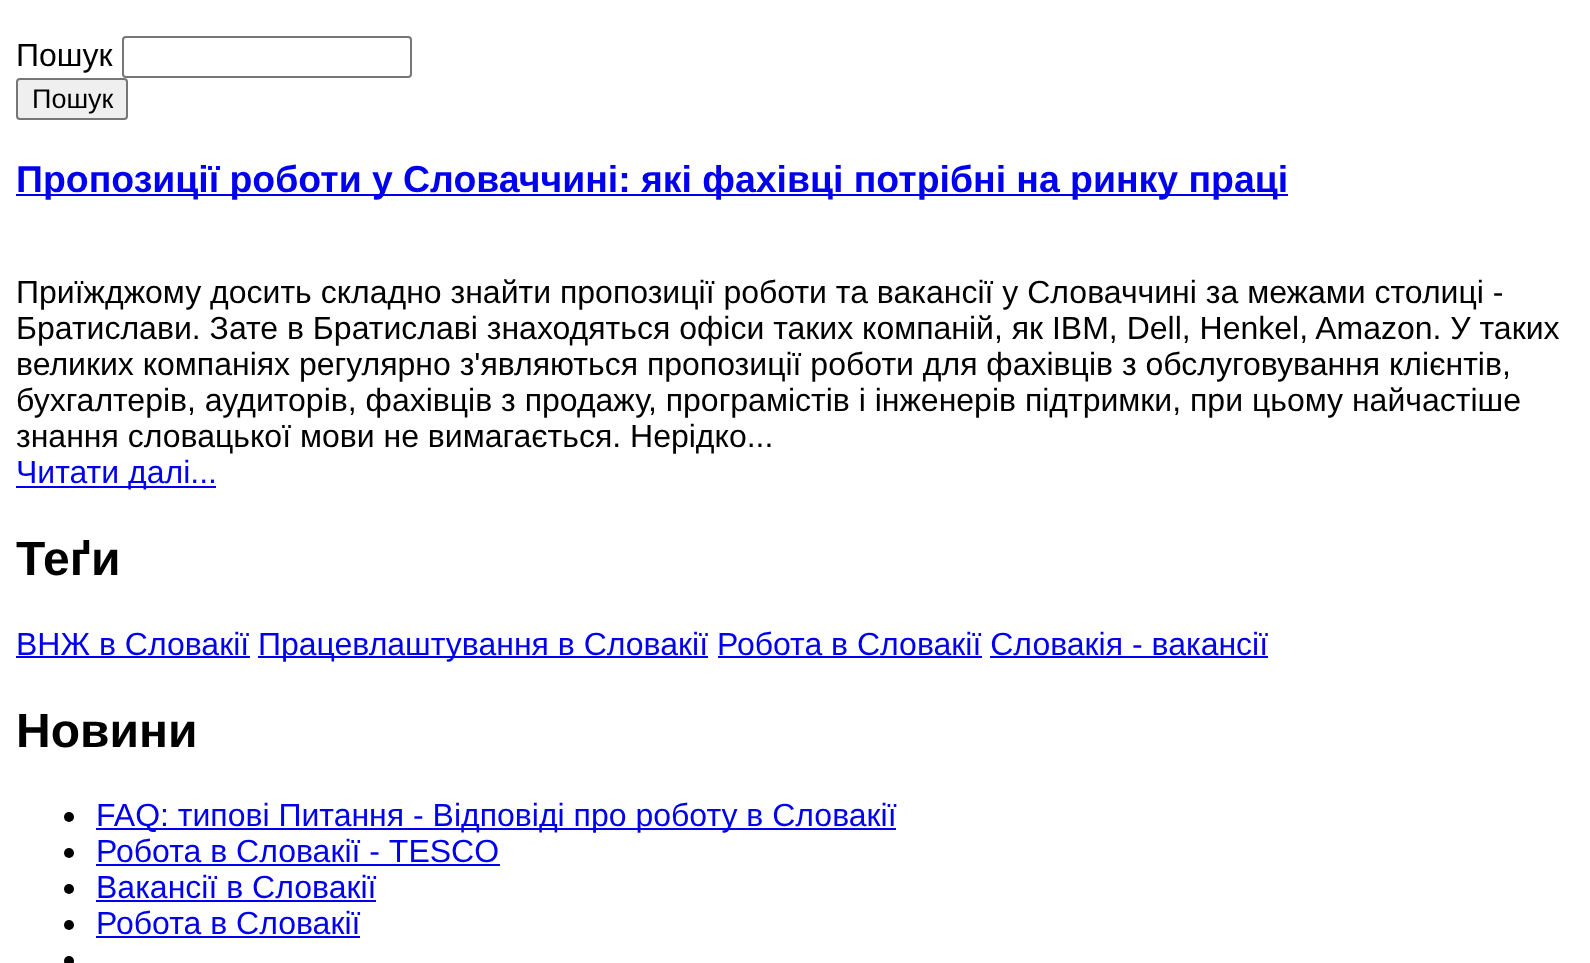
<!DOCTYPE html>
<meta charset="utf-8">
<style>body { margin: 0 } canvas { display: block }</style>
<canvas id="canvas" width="1590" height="963"></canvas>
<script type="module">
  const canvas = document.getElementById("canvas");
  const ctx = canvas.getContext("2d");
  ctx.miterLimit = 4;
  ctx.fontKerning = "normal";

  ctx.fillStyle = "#ffffff";
  ctx.fillRect(0, 0, 1590, 963);
  ctx.font = "32px Liberation Sans";
  ctx.fillStyle = "#000000";
  ctx.fillText("Пошук", 16, 66);
  ctx.beginPath();
  ctx.roundRect(123, 37, 288, 40, 3);
  ctx.strokeStyle = "#767676";
  ctx.lineWidth = 2;
  ctx.stroke();
  ctx.fillStyle = "#efefef";
  ctx.beginPath();
  ctx.roundRect(17, 79, 110, 40, 3);
  ctx.fill();
  ctx.stroke();
  ctx.font = "27px Liberation Sans";
  ctx.fillStyle = "#000000";
  ctx.fillText("Пошук", 32, 108);
  ctx.fillStyle = "#0000ee";
  ctx.fillRect(16, 194, 1272, 2);
  ctx.wordSpacing = "-0.1px";
  ctx.font = "bold 37.45px Liberation Sans";
  ctx.fillText("Пропозиції роботи у Словаччині: які фахівці потрібні на ринку праці", 16, 192);
  ctx.wordSpacing = "0px";
  ctx.font = "32px Liberation Sans";
  ctx.fillStyle = "#000000";
  ctx.fillText("Приїжджому досить складно знайти пропозиції роботи та вакансії у Словаччині за межами столиці -", 16, 303);
  ctx.fillText("Братислави. Зате в Братиславі знаходяться офіси таких компаній, як IBM, Dell, Henkel, Amazon. У таких", 16, 339);
  ctx.fillText("великих компаніях регулярно з'являються пропозиції роботи для фахівців з обслуговування клієнтів,", 16, 375);
  ctx.fillText("бухгалтерів, аудиторів, фахівців з продажу, програмістів і інженерів підтримки, при цьому найчастіше", 16, 411);
  ctx.fillText("знання словацької мови не вимагається. Нерідко...", 16, 447);
  ctx.fillStyle = "#0000ee";
  ctx.fillRect(16, 486, 200, 2);
  ctx.fillText("Читати далі...", 16, 483);
  ctx.font = "bold 48px Liberation Sans";
  ctx.fillStyle = "#000000";
  ctx.fillText("Теґи", 16, 575);
  ctx.font = "32px Liberation Sans";
  ctx.fillStyle = "#0000ee";
  ctx.fillText("ВНЖ в Словакії", 16, 655);
  ctx.fillRect(16, 656, 234, 2);
  ctx.fillRect(258, 656, 450, 2);
  ctx.fillText("Працевлаштування в Словакії Робота в Словакії Словакія - вакансії", 258, 655);
  ctx.fillRect(718, 656, 264, 2);
  ctx.fillRect(990, 656, 278, 2);
  ctx.font = "bold 48px Liberation Sans";
  ctx.fillStyle = "#000000";
  ctx.fillText("Новини", 16, 747);
  ctx.beginPath();
  ctx.arc(69, 817, 5, 0, Math.PI * 2);
  ctx.fill();
  ctx.fillStyle = "#0000ee";
  ctx.fillRect(96, 828, 800, 2);
  ctx.font = "32px Liberation Sans";
  ctx.fillText("FAQ: типові Питання - Відповіді про роботу в Словакії", 96, 826);
  ctx.fillStyle = "#000000";
  ctx.beginPath();
  ctx.arc(69, 853, 5, 0, Math.PI * 2);
  ctx.fill();
  ctx.fillStyle = "#0000ee";
  ctx.fillText("Робота в Словакії - TESCO", 96, 862);
  ctx.fillRect(96, 864, 404, 2);
  ctx.fillStyle = "#000000";
  ctx.beginPath();
  ctx.arc(69, 889, 5, 0, Math.PI * 2);
  ctx.fill();
  ctx.fillStyle = "#0000ee";
  ctx.fillText("Вакансії в Словакії", 96, 898);
  ctx.fillRect(96, 900, 280, 2);
  ctx.fillStyle = "#000000";
  ctx.beginPath();
  ctx.arc(69, 925, 5, 0, Math.PI * 2);
  ctx.fill();
  ctx.fillStyle = "#0000ee";
  ctx.fillText("Робота в Словакії", 96, 934);
  ctx.fillRect(96, 936, 264, 2);
  ctx.fillStyle = "#000000";
  ctx.beginPath();
  ctx.arc(69, 961, 5, 0, Math.PI * 2);
  ctx.fill();
</script>
